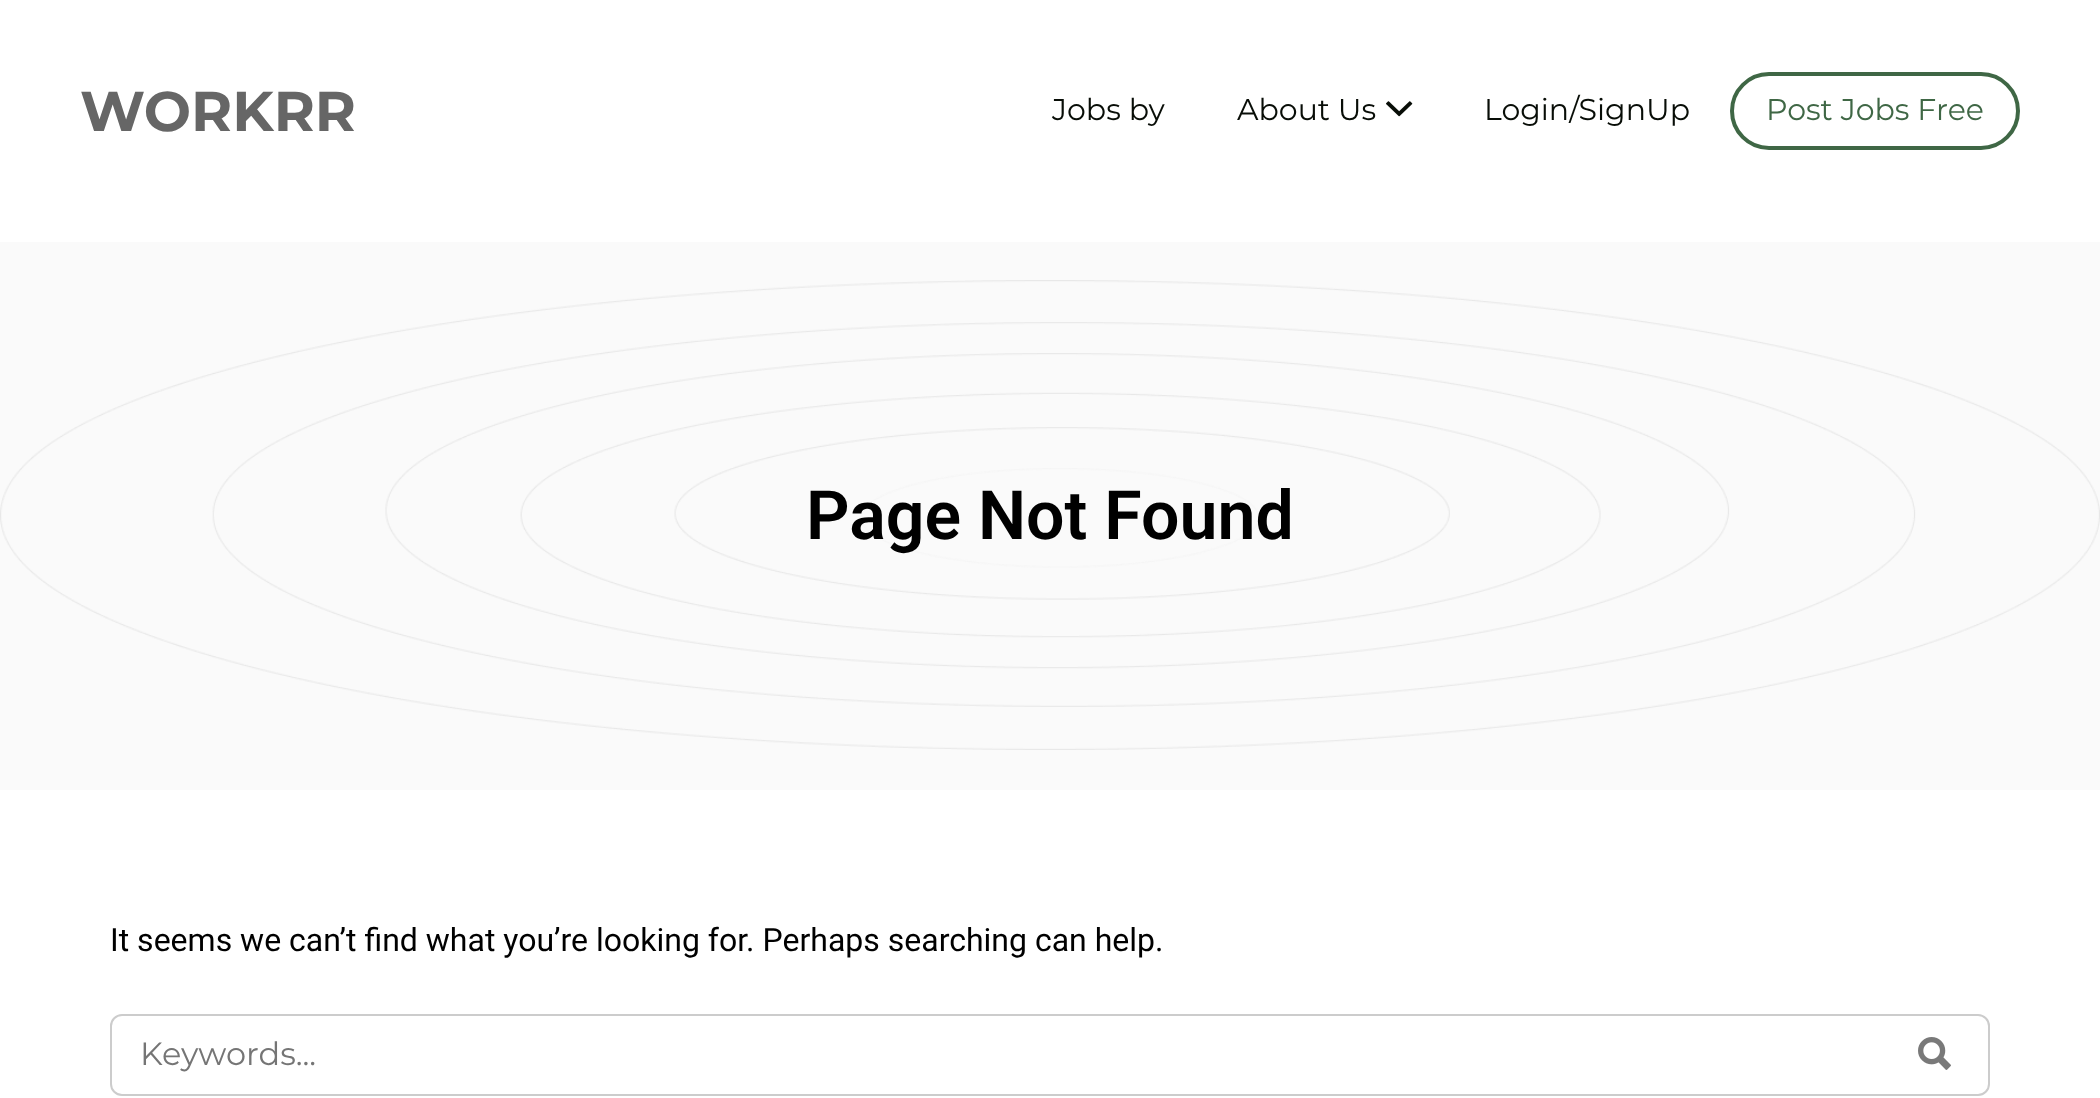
<!DOCTYPE html>
<meta charset="utf-8">
<style>body { margin: 0 } canvas { display: block }</style>
<canvas id="canvas" width="2100" height="1098"></canvas>
<script type="module">
  const canvas = document.getElementById("canvas");
  const ctx = canvas.getContext("2d");
  ctx.miterLimit = 4;
  ctx.fontKerning = "normal";
  async function loadImage(src) {
    const img = new Image();
    img.src = src;
    await img.decode();
    return img;
  }

  ctx.fillStyle = "#ffffff";
  ctx.fillRect(0, 0, 2100, 1098);
  ctx.font = "bold 56px Montserrat";
  ctx.fillStyle = "#666666";
  ctx.fillText("WORKRR", 80, 131);
  ctx.font = "30px Montserrat";
  ctx.fillStyle = "#080d07";
  ctx.fillText("Jobs by", 1052, 120);
  ctx.fillText("About Us", 1237, 120);
  ctx.drawImage(await loadImage("img1.png"), 1386, 101, 27, 16);
  ctx.fillText("Login/SignUp", 1484, 120);
  ctx.beginPath();
  ctx.roundRect(1732, 74, 286, 74, 37);
  ctx.strokeStyle = "#3f6745";
  ctx.lineWidth = 4;
  ctx.stroke();
  ctx.fillStyle = "#3f6745";
  ctx.fillText("Post Jobs Free", 1766, 120);
  ctx.fillStyle = "#fafafa";
  ctx.fillRect(0, 242, 2100, 548);
  ctx.drawImage(await loadImage("img2.png"), 0, 280, 2100, 470);
  ctx.font = "600 68px Roboto";
  ctx.fillStyle = "#000000";
  ctx.fillText("Page Not Found", 806, 539);
  ctx.font = "32px Roboto";
  ctx.fillText("It seems we can’t find what you’re looking for. Perhaps searching can help.", 110, 951);
  ctx.beginPath();
  ctx.roundRect(111, 1015, 1878, 80, 11);
  ctx.strokeStyle = "#cccccc";
  ctx.lineWidth = 2;
  ctx.stroke();
  ctx.font = "32px Montserrat";
  ctx.fillStyle = "#757575";
  ctx.fillText("Keywords...", 140, 1065);
  ctx.drawImage(await loadImage("img3.png"), 1918, 1037, 33, 33);
</script>
